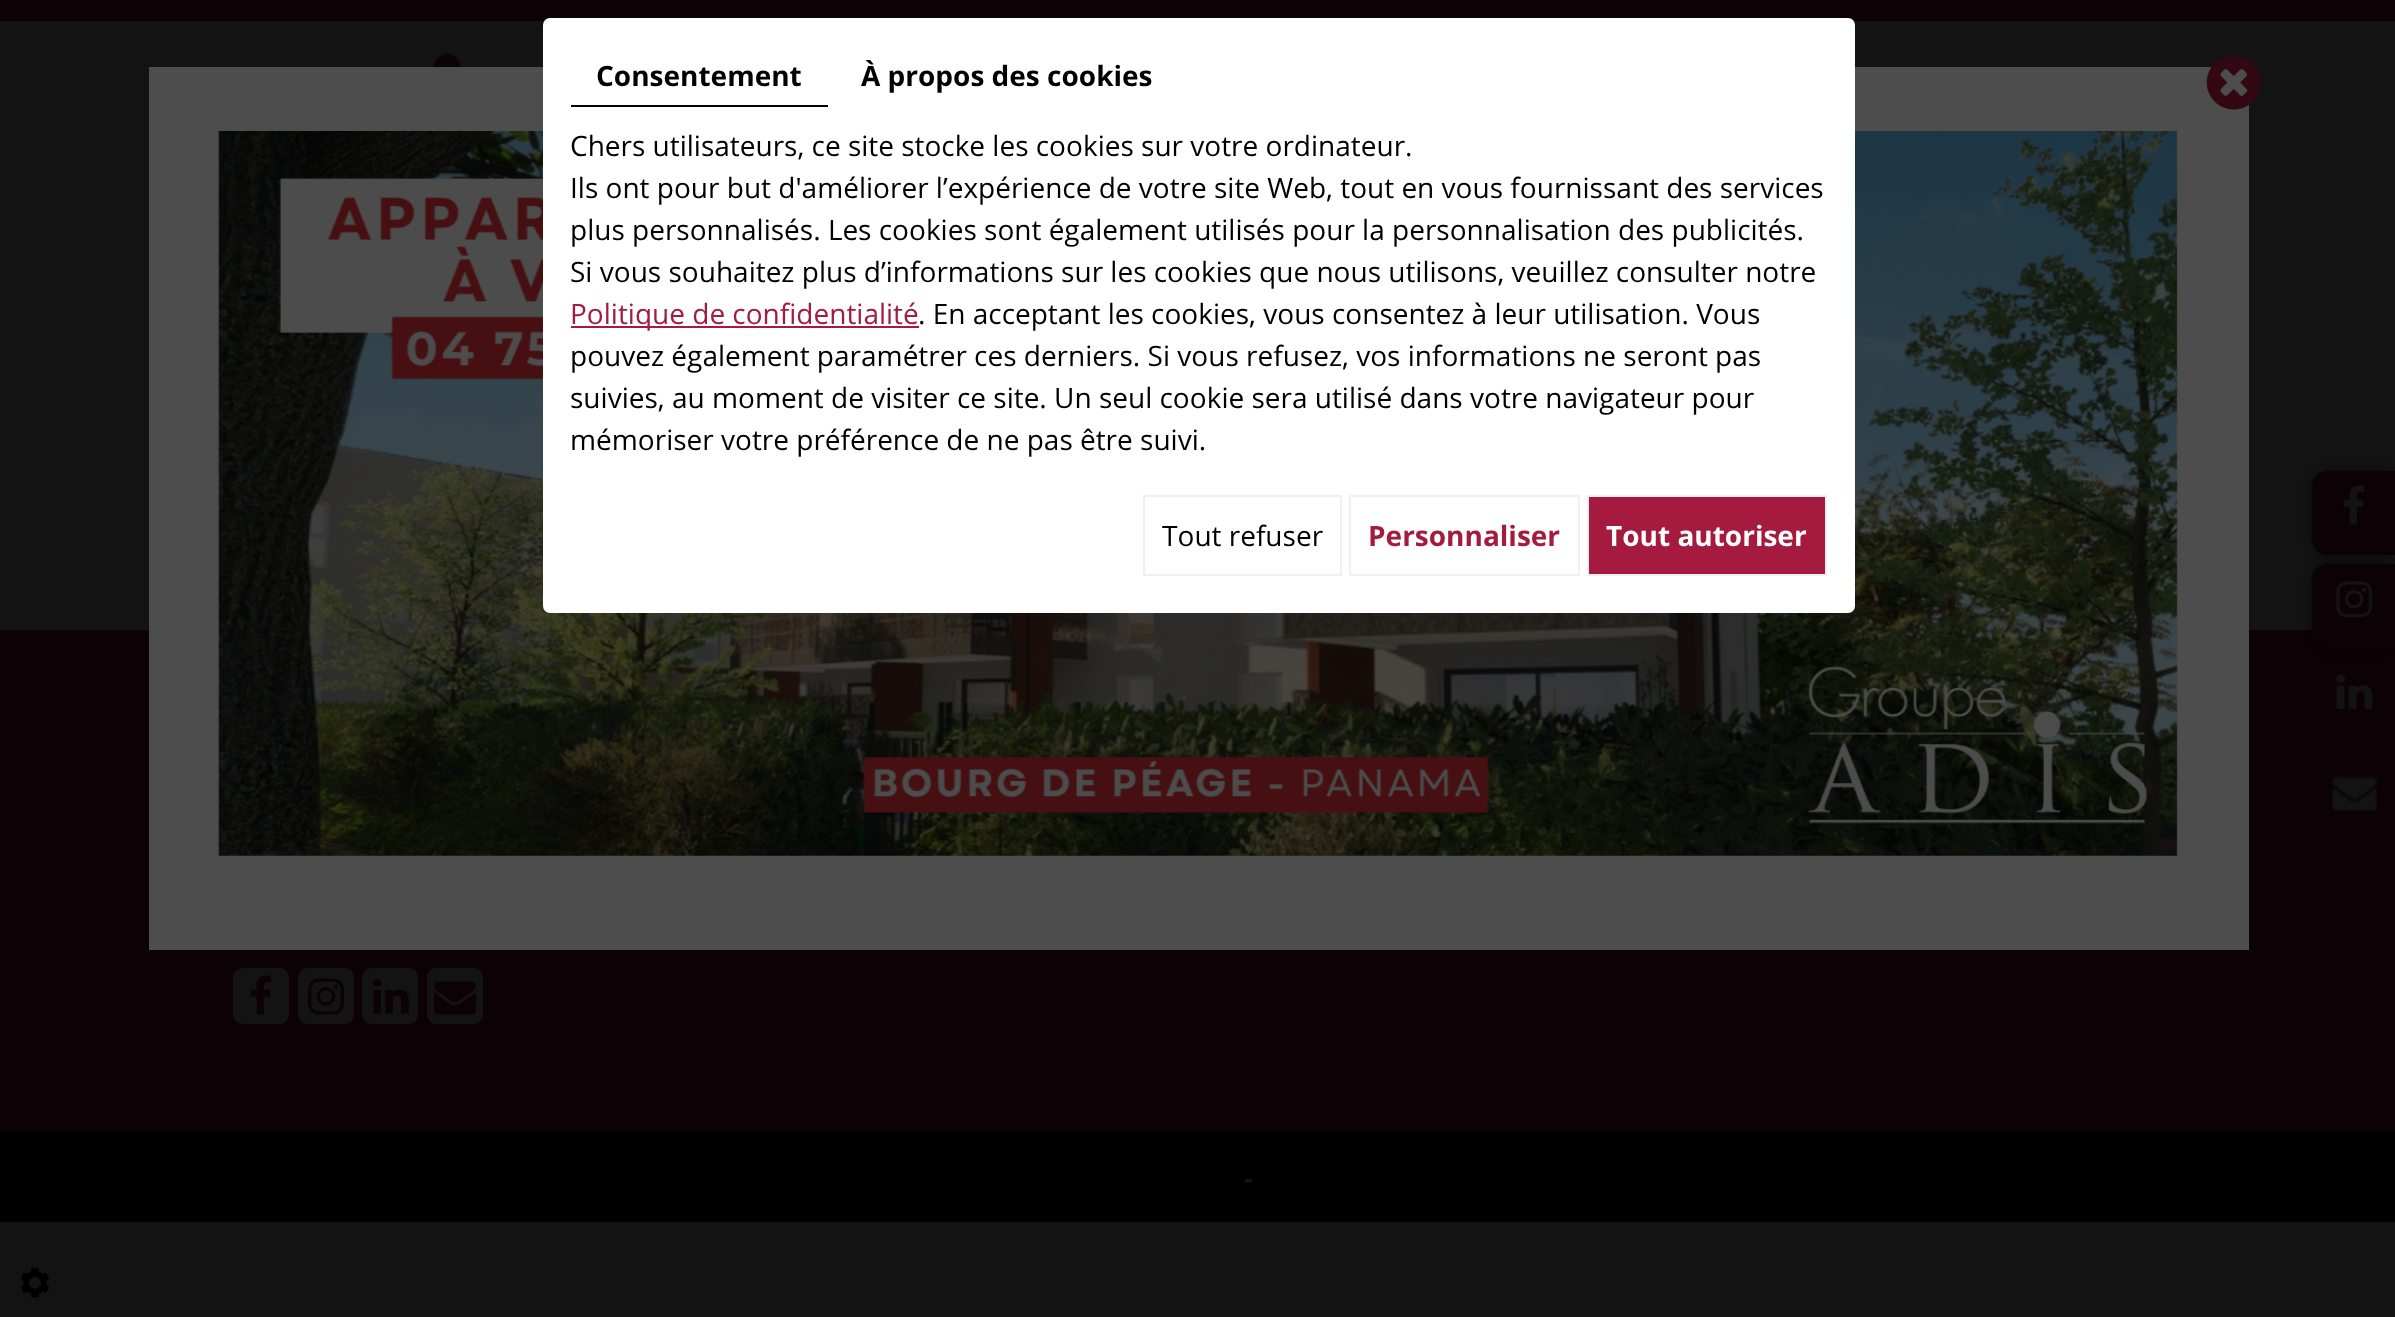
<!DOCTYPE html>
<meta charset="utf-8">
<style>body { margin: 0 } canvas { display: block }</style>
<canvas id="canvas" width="2395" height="1317"></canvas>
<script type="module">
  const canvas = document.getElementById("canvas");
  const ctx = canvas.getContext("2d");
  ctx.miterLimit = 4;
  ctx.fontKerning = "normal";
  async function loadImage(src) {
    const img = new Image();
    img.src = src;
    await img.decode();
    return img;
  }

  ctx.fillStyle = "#131313";
  ctx.fillRect(0, 0, 2395, 1317);
  ctx.fillStyle = "#0c0205";
  ctx.fillRect(0, 0, 2395, 21);
  ctx.drawImage(await loadImage("img1.png"), 433, 53, 28, 14);
  ctx.fillRect(0, 630, 2395, 502);
  ctx.fillStyle = "#4d4d4d";
  ctx.fillRect(149, 67, 2100, 883);
  ctx.drawImage(await loadImage("img2.png"), 2206, 55, 55, 55);
  ctx.drawImage(await loadImage("img3.png"), 218, 131, 1960, 725);
  ctx.fillStyle = "#ffffff";
  ctx.beginPath();
  ctx.roundRect(543, 18, 1312, 595, 7);
  ctx.fill();
  ctx.fillStyle = "#000000";
  ctx.fillRect(571, 105, 257, 2);
  ctx.font = "bold 28px Open Sans";
  ctx.fillText("Consentement", 596, 86);
  ctx.fillText("À propos des cookies", 861, 86);
  ctx.font = "28px Open Sans";
  ctx.fillText("Chers utilisateurs, ce site stocke les cookies sur votre ordinateur.", 570, 156);
  ctx.fillText("Ils ont pour but d'améliorer l’expérience de votre site Web, tout en vous fournissant des services", 570, 198);
  ctx.fillText("plus personnalisés. Les cookies sont également utilisés pour la personnalisation des publicités.", 570, 240);
  ctx.fillText("Si vous souhaitez plus d’informations sur les cookies que nous utilisons, veuillez consulter notre", 570, 282);
  ctx.fillStyle = "#a51a3f";
  ctx.fillRect(571, 326, 348, 2);
  ctx.fillText("Politique de confidentialité", 570, 324);
  ctx.fillStyle = "#000000";
  ctx.fillText(". En acceptant les cookies, vous consentez à leur utilisation. Vous", 918, 324);
  ctx.fillText("pouvez également paramétrer ces derniers. Si vous refusez, vos informations ne seront pas", 570, 366);
  ctx.fillText("suivies, au moment de visiter ce site. Un seul cookie sera utilisé dans votre navigateur pour", 570, 408);
  ctx.fillText("mémoriser votre préférence de ne pas être suivi.", 570, 450);
  ctx.strokeStyle = "#f0f0f0";
  ctx.lineWidth = 2;
  ctx.strokeRect(1144, 496, 197, 79);
  ctx.fillText("Tout refuser", 1162, 546);
  ctx.strokeRect(1350, 496, 229, 79);
  ctx.font = "bold 28px Open Sans";
  ctx.fillStyle = "#a51a3f";
  ctx.fillText("Personnaliser", 1368, 546);
  ctx.beginPath();
  ctx.rect(1588, 496, 238, 79);
  ctx.fill();
  ctx.stroke();
  ctx.fillStyle = "#ffffff";
  ctx.fillText("Tout autoriser", 1606, 546);
  ctx.fillStyle = "rgba(0, 0, 0, 0.55)";
  ctx.filter = "blur(4.5px)";
  ctx.beginPath();
  ctx.roundRect(2312, 471, 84, 84, 16);
  ctx.fill();
  ctx.filter = "none";
  ctx.fillStyle = "#0c0205";
  ctx.beginPath();
  ctx.moveTo(2328, 471);
  ctx.lineTo(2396, 471);
  ctx.lineTo(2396, 555);
  ctx.lineTo(2328, 555);
  ctx.bezierCurveTo(2319, 555, 2312, 548, 2312, 539);
  ctx.lineTo(2312, 487);
  ctx.bezierCurveTo(2312, 478, 2319, 471, 2328, 471);
  ctx.closePath();
  ctx.fill();
  ctx.drawImage(await loadImage("img4.png"), 2343, 485, 21, 40);
  ctx.fillStyle = "rgba(0, 0, 0, 0.55)";
  ctx.filter = "blur(4.5px)";
  ctx.beginPath();
  ctx.roundRect(2312, 564, 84, 84, 16);
  ctx.fill();
  ctx.filter = "none";
  ctx.fillStyle = "#0c0205";
  ctx.beginPath();
  ctx.moveTo(2328, 564);
  ctx.lineTo(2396, 564);
  ctx.lineTo(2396, 648);
  ctx.lineTo(2328, 648);
  ctx.bezierCurveTo(2319, 648, 2312, 641, 2312, 632);
  ctx.lineTo(2312, 580);
  ctx.bezierCurveTo(2312, 571, 2319, 564, 2328, 564);
  ctx.closePath();
  ctx.fill();
  ctx.drawImage(await loadImage("img5.png"), 2336, 581, 37, 37);
  ctx.drawImage(await loadImage("img6.png"), 2336, 674, 37, 35);
  ctx.drawImage(await loadImage("img7.png"), 2331, 776, 48, 36);
  ctx.fillStyle = "#131313";
  ctx.beginPath();
  ctx.roundRect(233, 968, 56, 56, 9);
  ctx.fill();
  ctx.drawImage(await loadImage("img8.png"), 250, 975, 21, 40);
  ctx.beginPath();
  ctx.roundRect(298, 968, 56, 56, 9);
  ctx.fill();
  ctx.drawImage(await loadImage("img9.png"), 308, 978, 36, 37);
  ctx.beginPath();
  ctx.roundRect(362, 968, 56, 56, 9);
  ctx.fill();
  ctx.drawImage(await loadImage("img10.png"), 372, 979, 37, 35);
  ctx.beginPath();
  ctx.roundRect(427, 968, 56, 56, 9);
  ctx.fill();
  ctx.drawImage(await loadImage("img11.png"), 434, 981, 42, 34);
  ctx.fillStyle = "#000000";
  ctx.fillRect(0, 1132, 2395, 90);
  ctx.fillStyle = "#131313";
  ctx.fillText("-", 1244, 1188);
  ctx.drawImage(await loadImage("img12.png"), 20, 1268, 30, 30);
</script>
